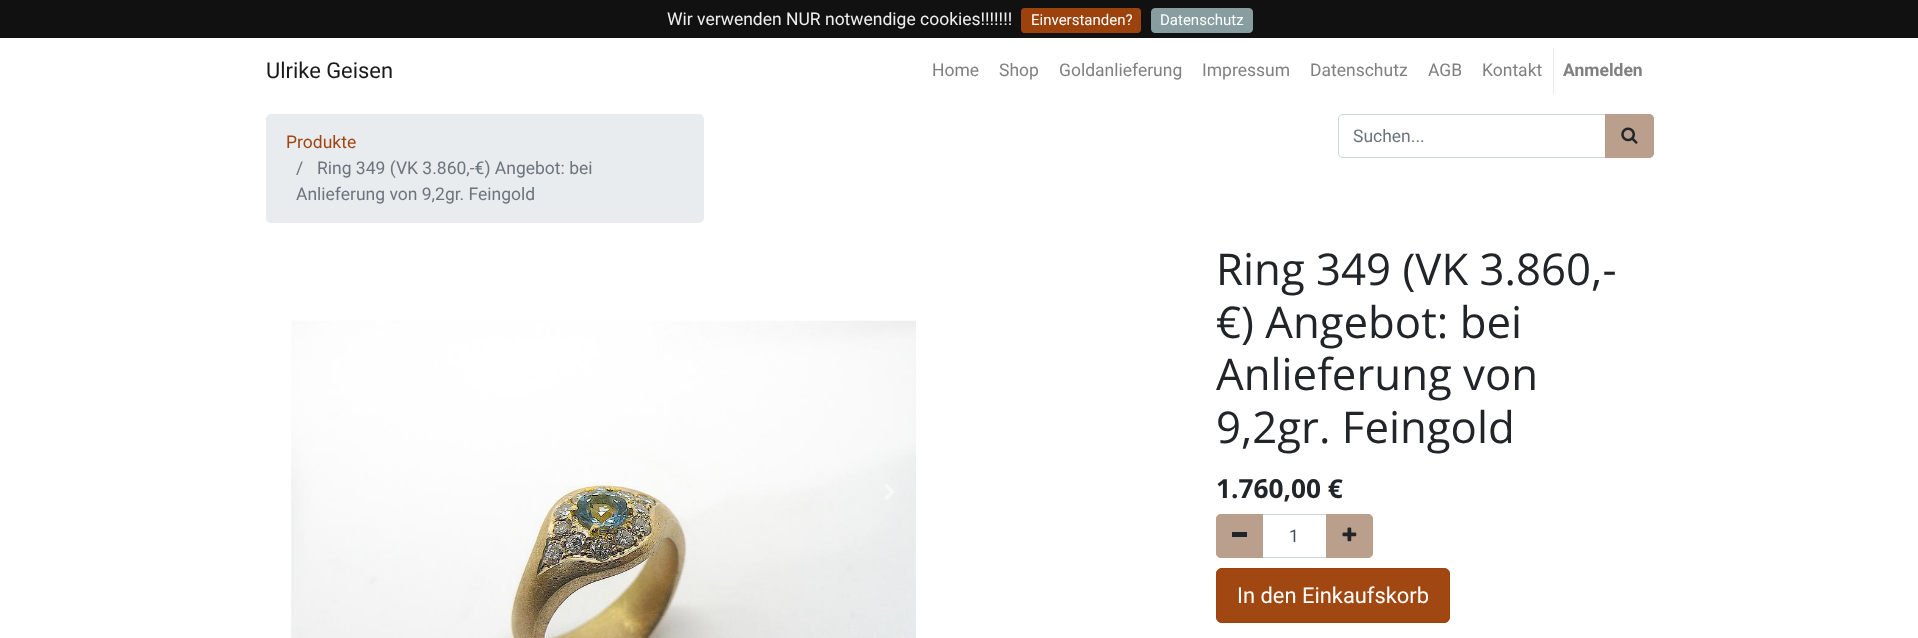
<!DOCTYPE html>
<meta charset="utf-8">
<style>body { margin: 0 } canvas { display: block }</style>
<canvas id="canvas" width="1918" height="638"></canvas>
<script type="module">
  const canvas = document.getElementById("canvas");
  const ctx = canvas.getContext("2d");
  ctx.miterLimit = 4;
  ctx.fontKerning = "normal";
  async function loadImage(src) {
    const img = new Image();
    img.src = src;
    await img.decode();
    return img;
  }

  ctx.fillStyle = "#ffffff";
  ctx.fillRect(0, 0, 1918, 638);
  ctx.fillStyle = "#111111";
  ctx.fillRect(0, 0, 1918, 38);
  ctx.font = "17.5px Roboto";
  ctx.fillStyle = "#eeeeee";
  ctx.fillText("Wir verwenden NUR notwendige cookies!!!!!!!", 667, 25);
  ctx.fillStyle = "#9c420d";
  ctx.beginPath();
  ctx.roundRect(1021, 8, 120, 25, 4);
  ctx.fill();
  ctx.beginPath();
  ctx.roundRect(1021.5, 8.5, 119, 24, 3.5);
  ctx.strokeStyle = "rgba(159, 67, 13, 0.98)";
  ctx.stroke();
  ctx.font = "15px Roboto";
  ctx.fillStyle = "#ffffff";
  ctx.fillText("Einverstanden?", 1031, 25);
  ctx.fillStyle = "#879da0";
  ctx.beginPath();
  ctx.roundRect(1151.5, 8.5, 101, 24, 3.5);
  ctx.fill();
  ctx.strokeStyle = "#879da0";
  ctx.stroke();
  ctx.fillStyle = "#ffffff";
  ctx.fillText("Datenschutz", 1160, 25);
  ctx.font = "21.9px Roboto";
  ctx.fillStyle = "#1a1a1a";
  ctx.fillText("Ulrike Geisen", 266, 78);
  ctx.font = "17.5px Roboto";
  ctx.fillStyle = "#808080";
  ctx.fillText("Home", 932, 76);
  ctx.fillText("Shop", 999, 76);
  ctx.fillText("Goldanlieferung", 1059, 76);
  ctx.fillText("Impressum", 1202, 76);
  ctx.fillText("Datenschutz", 1310, 76);
  ctx.fillText("AGB", 1428, 76);
  ctx.fillText("Kontakt", 1482, 76);
  ctx.fillStyle = "#e9ecef";
  ctx.fillRect(1553, 48, 1, 46);
  ctx.font = "bold 17.5px Roboto";
  ctx.fillStyle = "#808080";
  ctx.fillText("Anmelden", 1563, 76);
  ctx.fillStyle = "#e9ecef";
  ctx.beginPath();
  ctx.roundRect(266, 114, 438, 109, 5);
  ctx.fill();
  ctx.font = "17.5px Roboto";
  ctx.fillStyle = "#a04612";
  ctx.fillText("Produkte", 286, 148);
  ctx.fillStyle = "#6c757d";
  ctx.fillText("/", 296, 174);
  ctx.fillText("Ring 349 (VK 3.860,-€) Angebot: bei", 317, 174);
  ctx.fillText("Anlieferung von 9,2gr. Feingold", 296, 200);
  ctx.beginPath();
  ctx.roundRect(1338.5, 114.5, 267, 43, [4.5, 0, 0, 4.5]);
  ctx.strokeStyle = "#ced4da";
  ctx.stroke();
  ctx.fillText("Suchen...", 1353, 142);
  ctx.fillStyle = "rgba(186, 157, 139, 0.98)";
  ctx.beginPath();
  ctx.roundRect(1605, 114, 49, 44, [0, 5, 5, 0]);
  ctx.fill();
  ctx.beginPath();
  ctx.roundRect(1605.5, 114.5, 48, 43, [0, 4.5, 4.5, 0]);
  ctx.strokeStyle = "rgba(186, 157, 139, 0.98)";
  ctx.stroke();
  ctx.drawImage(await loadImage("img1.png"), 1621, 127, 17, 17);
  ctx.drawImage(await loadImage("img2.png"), 291, 320, 625, 318);
  ctx.drawImage(await loadImage("img3.png"), 885, 484, 10, 16);
  ctx.font = "43.75px Open Sans";
  ctx.fillStyle = "#212529";
  ctx.fillText("Ring 349 (VK 3.860,-", 1216, 285);
  ctx.fillText("€) Angebot: bei", 1216, 338);
  ctx.fillText("Anlieferung von", 1216, 390);
  ctx.fillText("9,2gr. Feingold", 1216, 443);
  ctx.font = "bold 26.25px Open Sans";
  ctx.fillText("1.760,00 €", 1216, 498);
  ctx.strokeStyle = "#ced4da";
  ctx.strokeRect(1261.5, 514.5, 66, 43);
  ctx.fillStyle = "rgba(186, 157, 139, 0.98)";
  ctx.beginPath();
  ctx.roundRect(1216, 514, 47, 44, [5, 0, 0, 5]);
  ctx.fill();
  ctx.beginPath();
  ctx.roundRect(1216.5, 514.5, 46, 43, [4.5, 0, 0, 4.5]);
  ctx.strokeStyle = "rgba(186, 157, 139, 0.98)";
  ctx.stroke();
  ctx.fillStyle = "#212529";
  ctx.fillRect(1232, 532, 15, 5);
  ctx.font = "17.5px Roboto";
  ctx.fillStyle = "#495057";
  ctx.fillText("1", 1289, 542);
  ctx.fillStyle = "rgba(186, 157, 139, 0.98)";
  ctx.beginPath();
  ctx.roundRect(1326, 514, 47, 44, [0, 5, 5, 0]);
  ctx.fill();
  ctx.beginPath();
  ctx.roundRect(1326.5, 514.5, 46, 43, [0, 4.5, 4.5, 0]);
  ctx.stroke();
  ctx.drawImage(await loadImage("img4.png"), 1342, 527, 15, 15);
  ctx.fillStyle = "#a14712";
  ctx.beginPath();
  ctx.roundRect(1216, 568, 234, 55, 6);
  ctx.fill();
  ctx.beginPath();
  ctx.roundRect(1216.5, 568.5, 233, 54, 5.5);
  ctx.strokeStyle = "rgba(159, 67, 13, 0.98)";
  ctx.stroke();
  ctx.font = "21.9px Roboto";
  ctx.fillStyle = "#ffffff";
  ctx.fillText("In den Einkaufskorb", 1237, 603);
</script>
